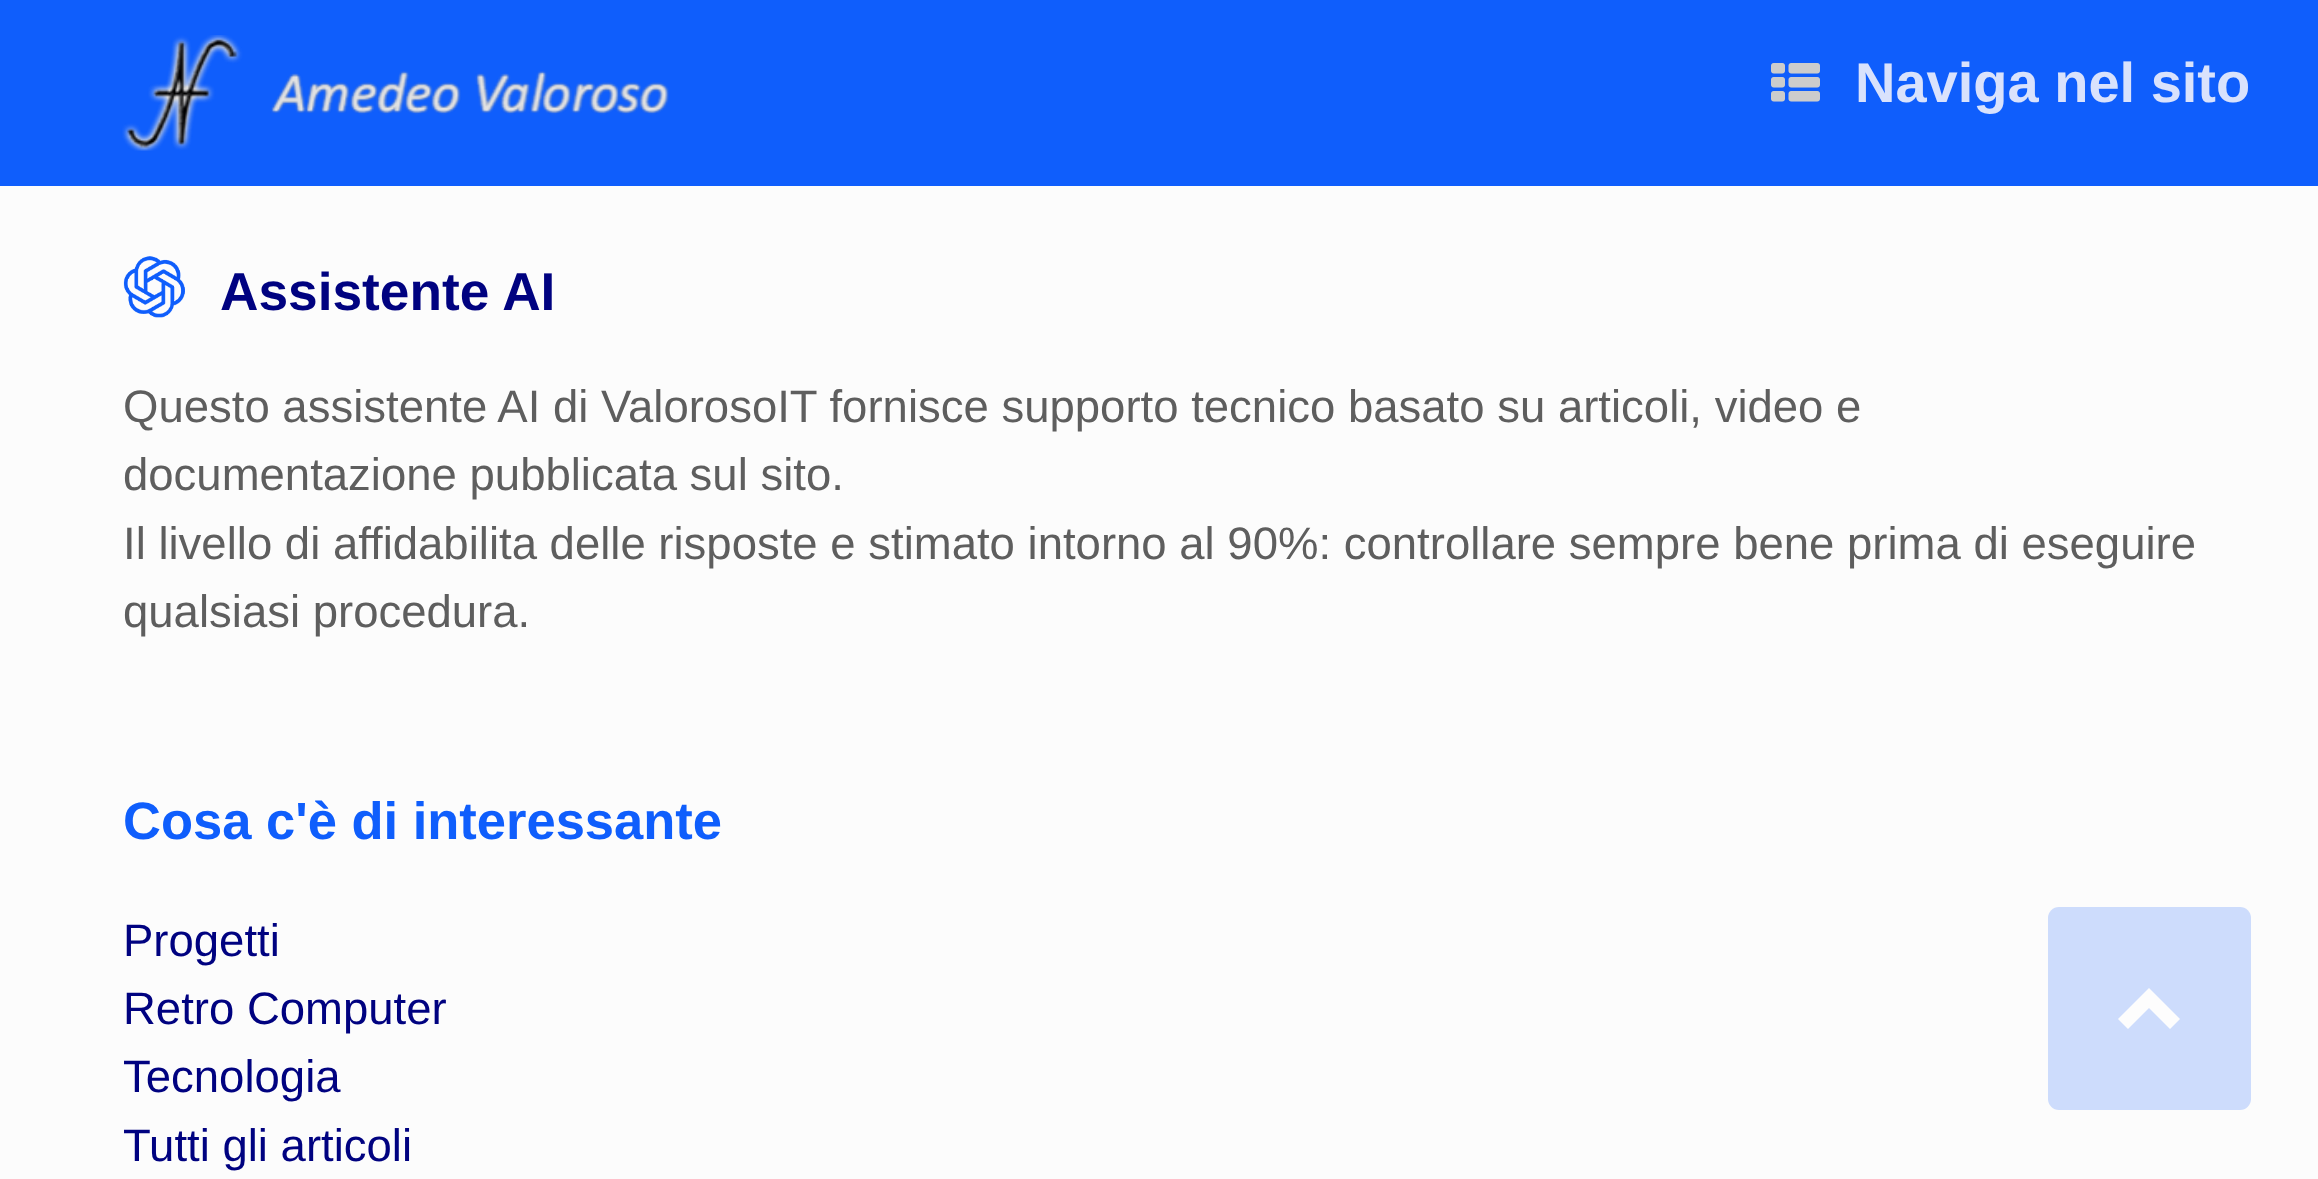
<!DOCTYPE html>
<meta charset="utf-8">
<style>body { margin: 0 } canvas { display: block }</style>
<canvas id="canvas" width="2318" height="1179"></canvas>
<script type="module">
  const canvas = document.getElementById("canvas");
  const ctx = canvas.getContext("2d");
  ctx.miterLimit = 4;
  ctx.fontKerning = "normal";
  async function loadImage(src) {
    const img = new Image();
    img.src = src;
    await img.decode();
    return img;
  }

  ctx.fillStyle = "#fcfcfc";
  ctx.fillRect(0, 0, 2318, 1179);
  ctx.fillStyle = "#0f5efc";
  ctx.fillRect(0, 0, 2318, 186);
  ctx.drawImage(await loadImage("img1.png"), 122, 35, 547, 116);
  ctx.drawImage(await loadImage("img2.png"), 1771, 63, 49, 39);
  ctx.font = "bold 56px Liberation Sans";
  ctx.fillStyle = "#d9e2fc";
  ctx.fillText("Naviga nel sito", 1855, 102);
  ctx.drawImage(await loadImage("img3.png"), 123, 256, 62, 62);
  ctx.font = "bold 53.25px Liberation Sans";
  ctx.fillStyle = "#000280";
  ctx.fillText("Assistente AI", 220, 310);
  ctx.font = "45.5px Liberation Sans";
  ctx.fillStyle = "#5e5e5e";
  ctx.fillText("Questo assistente AI di ValorosoIT fornisce supporto tecnico basato su articoli, video e", 123, 422);
  ctx.fillText("documentazione pubblicata sul sito.", 123, 490);
  ctx.fillText("Il livello di affidabilita delle risposte e stimato intorno al 90%: controllare sempre bene prima di eseguire", 123, 559);
  ctx.fillText("qualsiasi procedura.", 123, 627);
  ctx.font = "bold 52.5px Liberation Sans";
  ctx.fillStyle = "#0f5efc";
  ctx.fillText("Cosa c'è di interessante", 123, 839);
  ctx.font = "45.5px Liberation Sans";
  ctx.fillStyle = "#000280";
  ctx.fillText("Progetti", 123, 956);
  ctx.fillText("Retro Computer", 123, 1024);
  ctx.fillText("Tecnologia", 123, 1092);
  ctx.fillText("Tutti gli articoli", 123, 1161);
  ctx.fillStyle = "#cddcfc";
  ctx.beginPath();
  ctx.roundRect(2048, 907, 203, 203, 11);
  ctx.fill();
  ctx.fillStyle = "#fdfdfd";
  ctx.beginPath();
  ctx.moveTo(2180, 1019);
  ctx.lineTo(2149, 988);
  ctx.lineTo(2118, 1019);
  ctx.lineTo(2128, 1029);
  ctx.lineTo(2149, 1008);
  ctx.lineTo(2170, 1029);
  ctx.closePath();
  ctx.fill();
</script>
